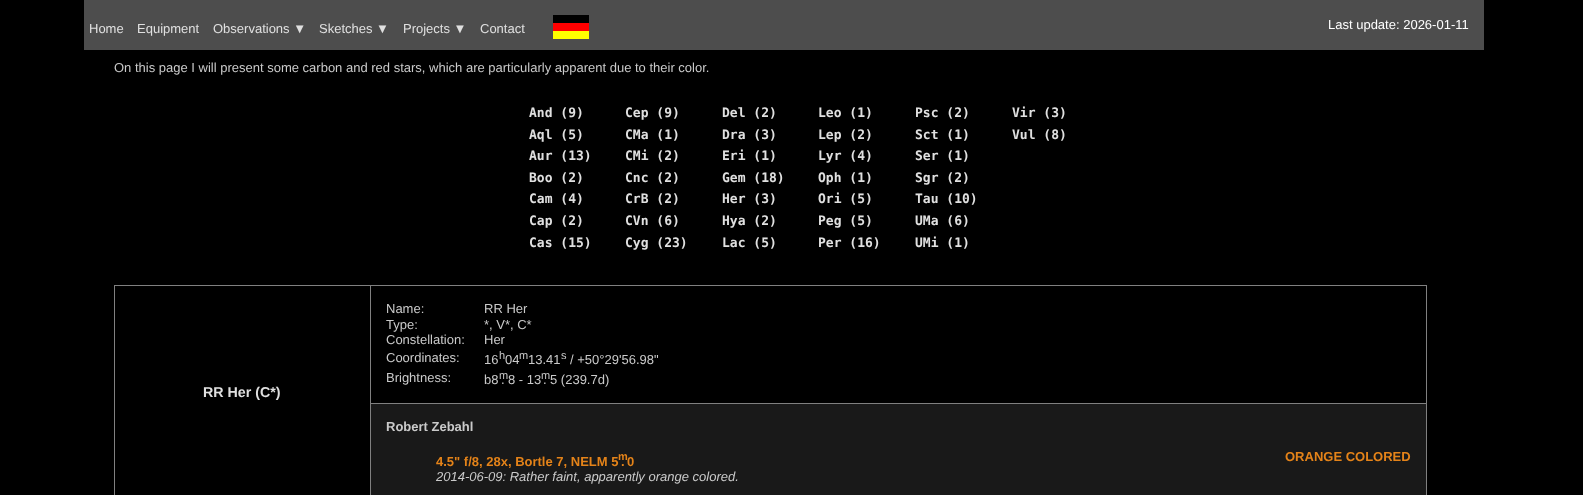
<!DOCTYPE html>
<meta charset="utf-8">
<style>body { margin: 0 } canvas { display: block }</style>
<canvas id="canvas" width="1583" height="495"></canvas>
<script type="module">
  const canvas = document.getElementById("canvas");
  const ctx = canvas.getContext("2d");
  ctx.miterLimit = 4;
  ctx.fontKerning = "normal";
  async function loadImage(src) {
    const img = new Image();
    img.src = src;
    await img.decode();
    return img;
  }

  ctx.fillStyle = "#000000";
  ctx.fillRect(0, 0, 1583, 495);
  ctx.fillStyle = "#4d4d4d";
  ctx.fillRect(84, 0, 1400, 50);
  ctx.font = "13px Liberation Sans";
  ctx.fillStyle = "#e0e0e0";
  ctx.fillText("Home", 89, 33);
  ctx.fillText("Equipment", 137, 33);
  ctx.fillText("Observations ▼", 213, 33);
  ctx.fillText("Sketches ▼", 319, 33);
  ctx.fillText("Projects ▼", 403, 33);
  ctx.fillText("Contact", 480, 33);
  ctx.drawImage(await loadImage("img1.png"), 553, 15, 36, 24);
  ctx.fillStyle = "#ffffff";
  ctx.fillText("Last update: 2026-01-11", 1328, 29);
  ctx.fillStyle = "#cacaca";
  ctx.fillText("On this page I will present some carbon and red stars, which are particularly apparent due to their color.", 114, 72);
  ctx.font = "bold 13px DejaVu Sans Mono";
  ctx.fillStyle = "#e0e0e0";
  ctx.fillText("And (9)", 529, 117);
  ctx.fillText("Cep (9)", 625, 117);
  ctx.fillText("Del (2)", 722, 117);
  ctx.fillText("Leo (1)", 818, 117);
  ctx.fillText("Psc (2)", 915, 117);
  ctx.fillText("Vir (3)", 1012, 117);
  ctx.fillText("Aql (5)", 529, 139);
  ctx.fillText("CMa (1)", 625, 139);
  ctx.fillText("Dra (3)", 722, 139);
  ctx.fillText("Lep (2)", 818, 139);
  ctx.fillText("Sct (1)", 915, 139);
  ctx.fillText("Vul (8)", 1012, 139);
  ctx.fillText("Aur (13)", 529, 160);
  ctx.fillText("CMi (2)", 625, 160);
  ctx.fillText("Eri (1)", 722, 160);
  ctx.fillText("Lyr (4)", 818, 160);
  ctx.fillText("Ser (1)", 915, 160);
  ctx.fillText("Boo (2)", 529, 182);
  ctx.fillText("Cnc (2)", 625, 182);
  ctx.fillText("Gem (18)", 722, 182);
  ctx.fillText("Oph (1)", 818, 182);
  ctx.fillText("Sgr (2)", 915, 182);
  ctx.fillText("Cam (4)", 529, 203);
  ctx.fillText("CrB (2)", 625, 203);
  ctx.fillText("Her (3)", 722, 203);
  ctx.fillText("Ori (5)", 818, 203);
  ctx.fillText("Tau (10)", 915, 203);
  ctx.fillText("Cap (2)", 529, 225);
  ctx.fillText("CVn (6)", 625, 225);
  ctx.fillText("Hya (2)", 722, 225);
  ctx.fillText("Peg (5)", 818, 225);
  ctx.fillText("UMa (6)", 915, 225);
  ctx.fillText("Cas (15)", 529, 247);
  ctx.fillText("Cyg (23)", 625, 247);
  ctx.fillText("Lac (5)", 722, 247);
  ctx.fillText("Per (16)", 818, 247);
  ctx.fillText("UMi (1)", 915, 247);
  ctx.fillStyle = "#808080";
  ctx.fillRect(114, 285, 1313, 1);
  ctx.fillRect(1426, 285, 1, 210);
  ctx.fillRect(114, 285, 1, 210);
  ctx.font = "13px Liberation Sans";
  ctx.fillStyle = "#cacaca";
  ctx.fillText("Name:", 386, 313);
  ctx.fillText("RR Her", 484, 313);
  ctx.fillText("Type:", 386, 329);
  ctx.fillText("*, V*, C*", 484, 329);
  ctx.fillText("Constellation:", 386, 344);
  ctx.fillText("Her", 484, 344);
  ctx.fillText("Coordinates:", 386, 362);
  ctx.fillText("16", 484, 364);
  ctx.font = "11px Liberation Sans";
  ctx.fillText("h", 499, 359);
  ctx.font = "13px Liberation Sans";
  ctx.fillText("04", 505, 364);
  ctx.font = "11px Liberation Sans";
  ctx.fillText("m", 519, 359);
  ctx.font = "13px Liberation Sans";
  ctx.fillText("13.41", 528, 364);
  ctx.font = "11px Liberation Sans";
  ctx.fillText("s", 561, 359);
  ctx.font = "13px Liberation Sans";
  ctx.fillText("/ +50°29'56.98\"", 570, 364);
  ctx.fillText("Brightness:", 386, 382);
  ctx.fillText("b8", 484, 384);
  ctx.font = "11px Liberation Sans";
  ctx.fillText("m", 499, 379);
  ctx.font = "13px Liberation Sans";
  ctx.fillText("8 - 13", 508, 384);
  ctx.font = "11px Liberation Sans";
  ctx.fillText("m", 541, 379);
  ctx.font = "13px Liberation Sans";
  ctx.fillText("5 (239.7d)", 550, 384);
  ctx.fillText(".", 501, 384);
  ctx.fillText(".", 543, 384);
  ctx.font = "bold 14.25px Liberation Sans";
  ctx.fillStyle = "#e0e0e0";
  ctx.fillText("RR Her (C*)", 203, 397);
  ctx.fillStyle = "#191919";
  ctx.fillRect(371, 404, 1055, 91);
  ctx.fillStyle = "#808080";
  ctx.fillRect(370, 403, 1057, 1);
  ctx.fillRect(370, 285, 1, 210);
  ctx.font = "bold 13px Liberation Sans";
  ctx.fillStyle = "#cacaca";
  ctx.fillText("Robert Zebahl", 386, 431);
  ctx.fillStyle = "#e48319";
  ctx.fillText("4.5\" f/8, 28x, Bortle 7, NELM 5", 436, 466);
  ctx.font = "bold 11px Liberation Sans";
  ctx.fillText("m", 618, 460);
  ctx.font = "bold 13px Liberation Sans";
  ctx.fillText("0", 627, 466);
  ctx.fillText(".", 621, 466);
  ctx.font = "italic 13px Liberation Sans";
  ctx.fillStyle = "#cacaca";
  ctx.fillText("2014-06-09: Rather faint, apparently orange colored.", 436, 481);
  ctx.font = "bold 13px Liberation Sans";
  ctx.fillStyle = "#e48319";
  ctx.fillText("ORANGE COLORED", 1285, 461);
</script>
